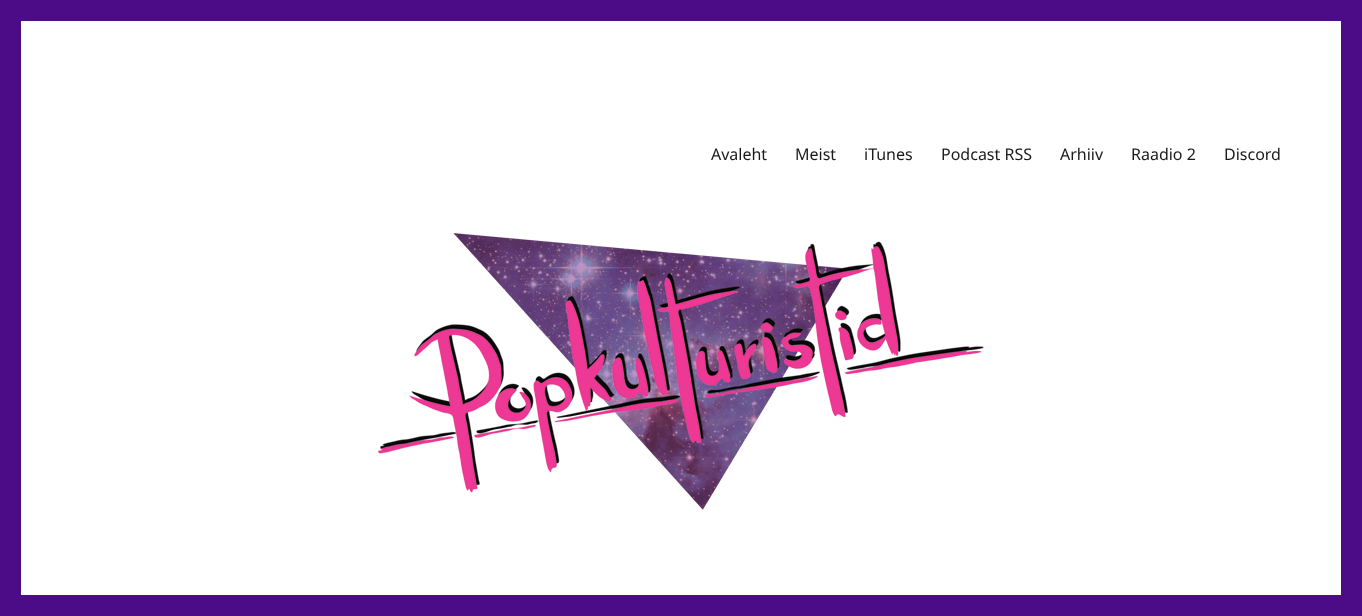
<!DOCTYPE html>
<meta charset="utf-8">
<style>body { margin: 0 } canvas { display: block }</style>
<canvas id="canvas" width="1362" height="616"></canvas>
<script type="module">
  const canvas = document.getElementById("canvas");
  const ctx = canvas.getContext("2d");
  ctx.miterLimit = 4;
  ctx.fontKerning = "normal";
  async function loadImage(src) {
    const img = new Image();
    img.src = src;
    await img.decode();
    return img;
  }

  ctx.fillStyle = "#4d0c87";
  ctx.fillRect(0, 0, 1362, 616);
  ctx.fillStyle = "#ffffff";
  ctx.fillRect(21, 21, 1320, 574);
  ctx.font = "16px Noto Sans";
  ctx.fillStyle = "#1a1a1a";
  ctx.fillText("Avaleht", 711, 160);
  ctx.fillText("Meist", 795, 160);
  ctx.fillText("iTunes", 864, 160);
  ctx.fillText("Podcast RSS", 941, 160);
  ctx.fillText("Arhiiv", 1060, 160);
  ctx.fillText("Raadio 2", 1131, 160);
  ctx.fillText("Discord", 1224, 160);
  ctx.drawImage(await loadImage("img1.png"), 378, 233, 606, 277);
</script>
